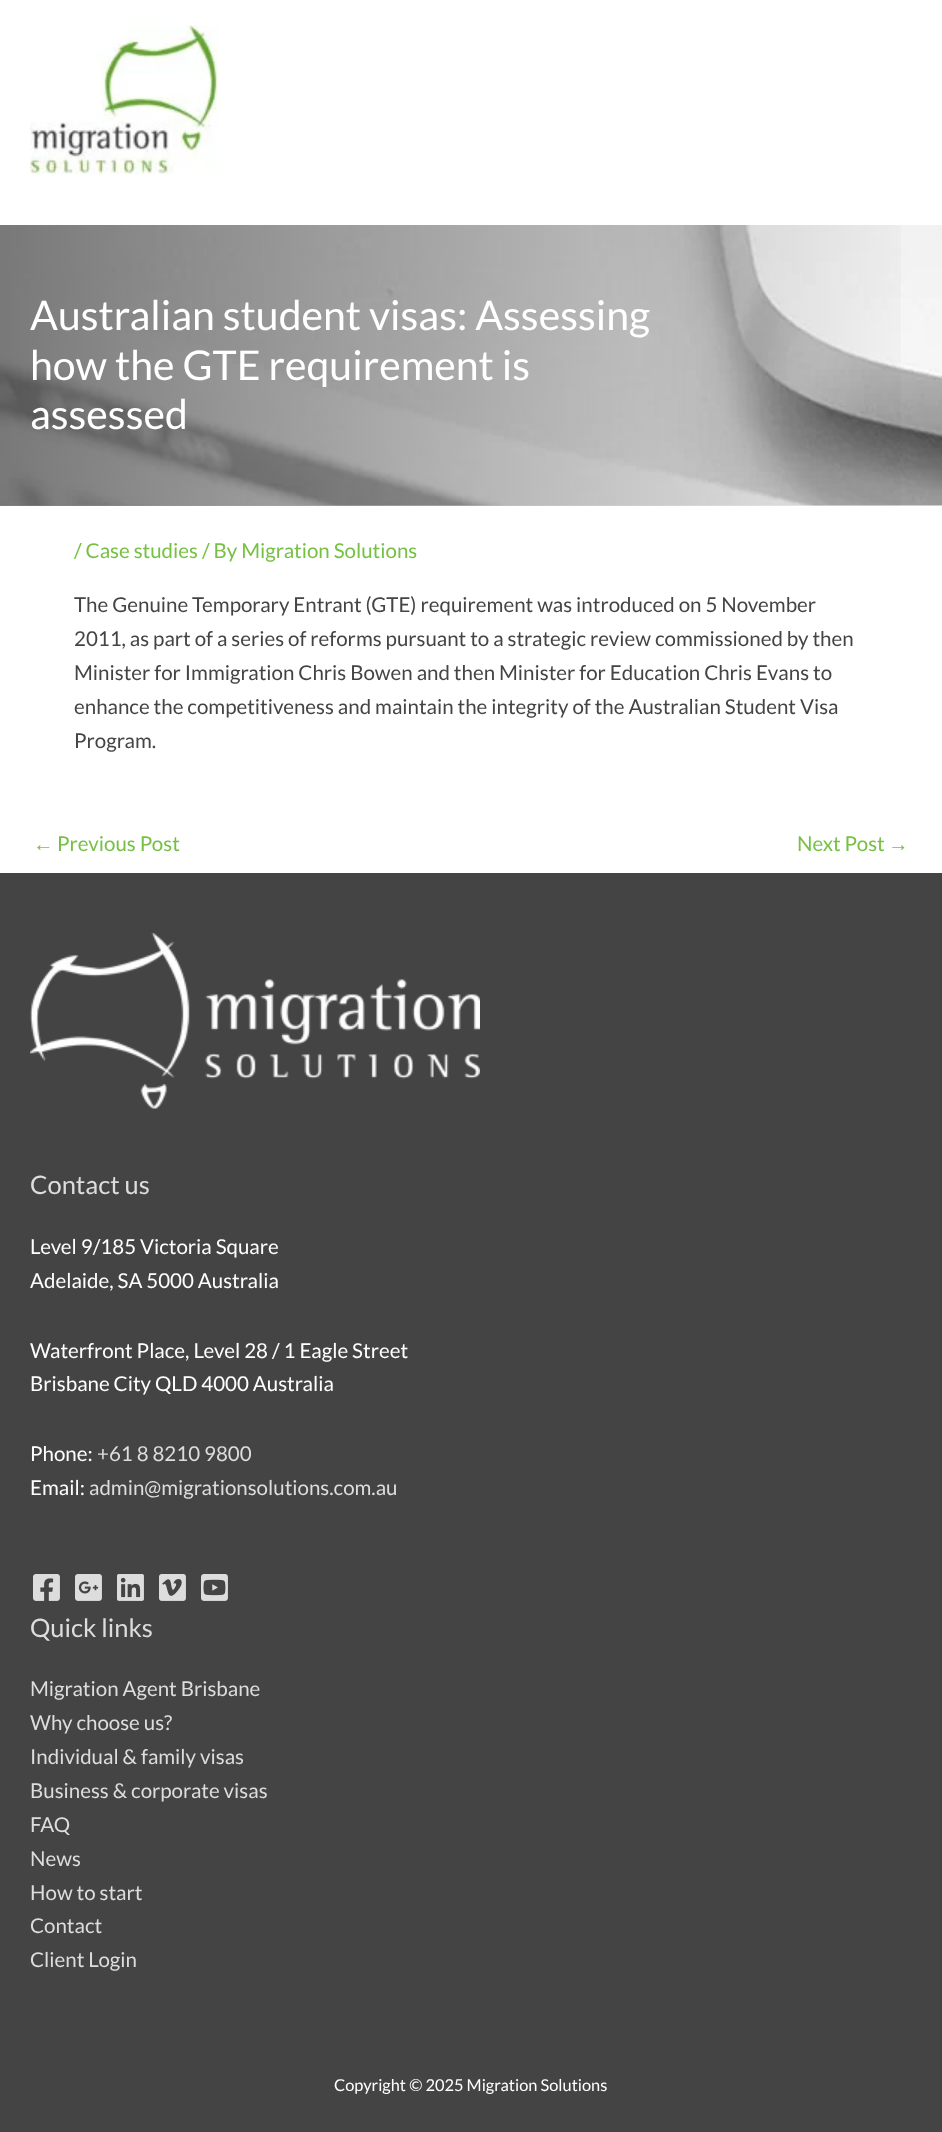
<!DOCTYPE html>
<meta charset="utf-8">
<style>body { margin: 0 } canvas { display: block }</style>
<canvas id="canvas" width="942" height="2132"></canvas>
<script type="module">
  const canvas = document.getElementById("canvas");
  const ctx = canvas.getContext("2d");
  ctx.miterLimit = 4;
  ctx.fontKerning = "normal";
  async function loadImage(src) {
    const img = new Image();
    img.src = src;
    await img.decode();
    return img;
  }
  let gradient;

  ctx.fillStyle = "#ffffff";
  ctx.fillRect(0, 0, 942, 2132);
  ctx.drawImage(await loadImage("img1.png"), 30, 25, 188, 149);
  ctx.drawImage(await loadImage("img2.png"), 0, 225, 942, 281);
  gradient = ctx.createLinearGradient(0, 365, 942, 365);
  gradient.addColorStop(0, "rgba(0, 0, 0, 0.5)");
  gradient.addColorStop(1, "rgba(0, 0, 0, 0)");
  ctx.fillStyle = gradient;
  ctx.fillRect(0, 225, 901, 281);
  ctx.font = "41px Lato";
  ctx.fillStyle = "#ffffff";
  ctx.fillText("Australian student visas: Assessing", 30, 330);
  ctx.fillText("how the GTE requirement is", 30, 380);
  ctx.fillText("assessed", 30, 429);
  ctx.font = "20.5px Lato";
  ctx.fillStyle = "#76c044";
  ctx.fillText("/ Case studies / By Migration Solutions", 74, 558);
  ctx.fillStyle = "#444444";
  ctx.fillText("The Genuine Temporary Entrant (GTE) requirement was introduced on 5 November", 74, 612);
  ctx.fillText("2011, as part of a series of reforms pursuant to a strategic review commissioned by then", 74, 646);
  ctx.fillText("Minister for Immigration Chris Bowen and then Minister for Education Chris Evans to", 74, 680);
  ctx.fillText("enhance the competitiveness and maintain the integrity of the Australian Student Visa", 74, 714);
  ctx.fillText("Program.", 74, 748);
  ctx.font = "20.5px Liberation Sans";
  ctx.fillStyle = "#76c044";
  ctx.fillText("←", 33, 851);
  ctx.font = "20.5px Lato";
  ctx.fillText("Previous Post", 57, 851);
  ctx.fillText("Next Post", 797, 851);
  ctx.font = "20.5px Liberation Sans";
  ctx.fillText("→", 888, 851);
  ctx.fillStyle = "#444444";
  ctx.fillRect(0, 873, 942, 1259);
  ctx.drawImage(await loadImage("img3.png"), 30, 933, 450, 176);
  ctx.font = "25.5px Lato";
  ctx.fillStyle = "#dddddd";
  ctx.fillText("Contact us", 30, 1194);
  ctx.font = "20.5px Lato";
  ctx.fillStyle = "#ffffff";
  ctx.fillText("Level 9/185 Victoria Square", 30, 1254);
  ctx.fillText("Adelaide, SA 5000 Australia", 30, 1288);
  ctx.fillText("Waterfront Place, Level 28 / 1 Eagle Street", 30, 1358);
  ctx.fillText("Brisbane City QLD 4000 Australia", 30, 1391);
  ctx.fillText("Phone:", 30, 1461);
  ctx.fillStyle = "#dddddd";
  ctx.fillText("+61 8 8210 9800", 97, 1461);
  ctx.fillStyle = "#ffffff";
  ctx.fillText("Email:", 30, 1495);
  ctx.fillStyle = "#dddddd";
  ctx.fillText("admin@migrationsolutions.com.au", 89, 1495);
  ctx.drawImage(await loadImage("img4.png"), 33, 1574, 27, 27);
  ctx.drawImage(await loadImage("img5.png"), 75, 1574, 27, 27);
  ctx.drawImage(await loadImage("img6.png"), 117, 1574, 27, 27);
  ctx.drawImage(await loadImage("img7.png"), 159, 1574, 27, 27);
  ctx.drawImage(await loadImage("img8.png"), 201, 1574, 27, 27);
  ctx.font = "25.5px Lato";
  ctx.fillText("Quick links", 30, 1637);
  ctx.font = "20.5px Lato";
  ctx.fillText("Migration Agent Brisbane", 30, 1696);
  ctx.fillText("Why choose us?", 30, 1730);
  ctx.fillText("Individual & family visas", 30, 1764);
  ctx.fillText("Business & corporate visas", 30, 1798);
  ctx.fillText("FAQ", 30, 1832);
  ctx.fillText("News", 30, 1866);
  ctx.fillText("How to start", 30, 1900);
  ctx.fillText("Contact", 30, 1933);
  ctx.fillText("Client Login", 30, 1967);
  ctx.font = "16.4px Lato";
  ctx.fillStyle = "#ffffff";
  ctx.fillText("Copyright © 2025 Migration Solutions", 334, 2091);
</script>
